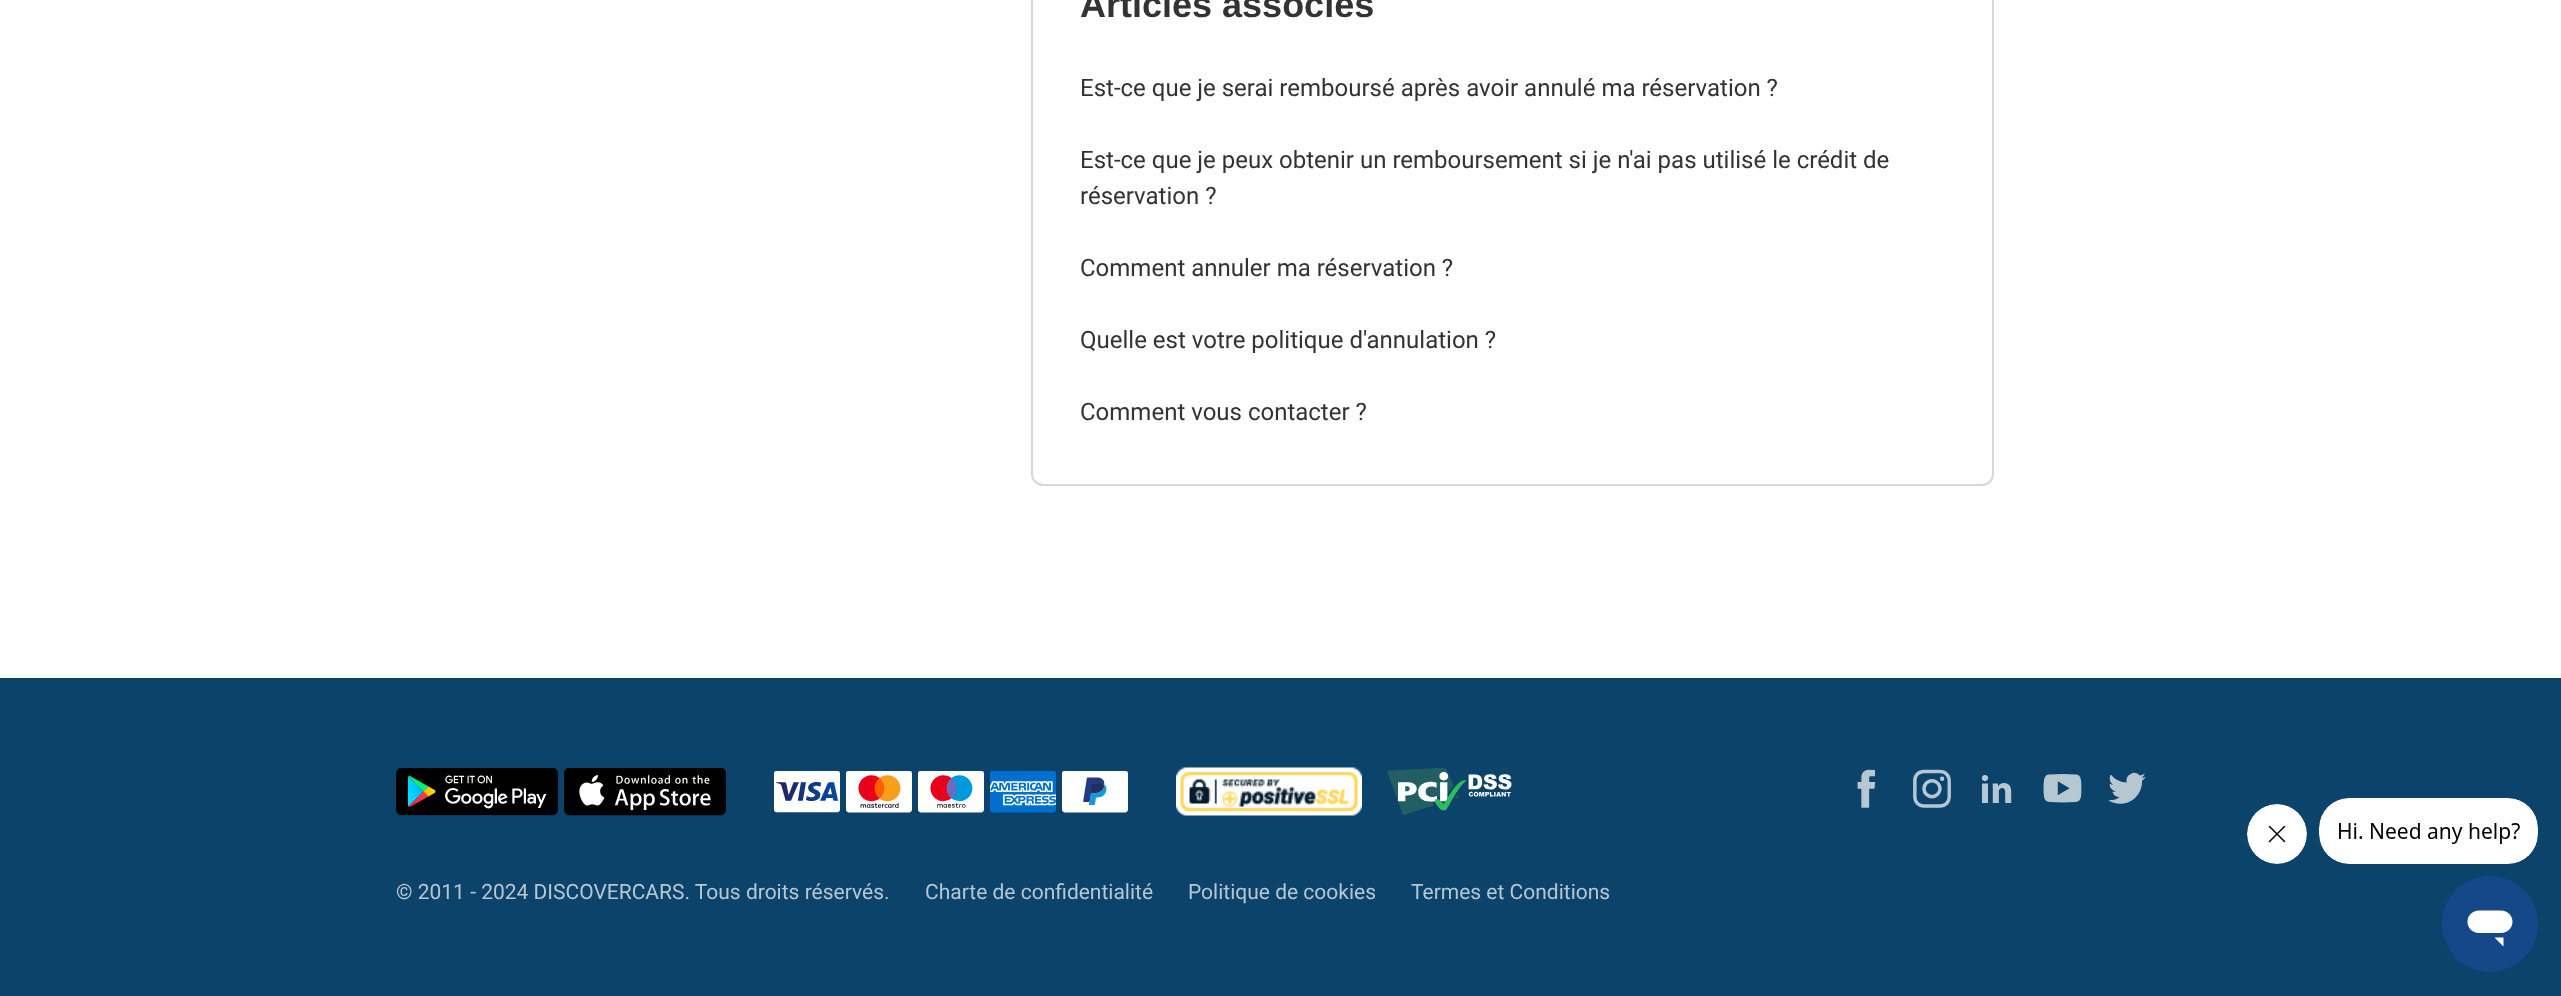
<!DOCTYPE html>
<meta charset="utf-8">
<style>body { margin: 0 } canvas { display: block }</style>
<canvas id="canvas" width="2561" height="996"></canvas>
<script type="module">
  const canvas = document.getElementById("canvas");
  const ctx = canvas.getContext("2d");
  ctx.miterLimit = 4;
  ctx.fontKerning = "normal";
  async function loadImage(src) {
    const img = new Image();
    img.src = src;
    await img.decode();
    return img;
  }

  ctx.fillStyle = "#ffffff";
  ctx.fillRect(0, 0, 2561, 996);
  ctx.beginPath();
  ctx.roundRect(1032, -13, 961, 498, 11);
  ctx.strokeStyle = "#d8d8d8";
  ctx.lineWidth = 2;
  ctx.stroke();
  ctx.font = "bold 36px Liberation Sans";
  ctx.fillStyle = "#333333";
  ctx.fillText("Articles associés", 1080, 17);
  ctx.font = "24px Roboto";
  ctx.fillText("Est-ce que je serai remboursé après avoir annulé ma réservation ?", 1080, 96);
  ctx.fillText("Est-ce que je peux obtenir un remboursement si je n'ai pas utilisé le crédit de", 1080, 168);
  ctx.fillText("réservation ?", 1080, 204);
  ctx.fillText("Comment annuler ma réservation ?", 1080, 276);
  ctx.fillText("Quelle est votre politique d'annulation ?", 1080, 348);
  ctx.fillText("Comment vous contacter ?", 1080, 420);
  ctx.fillStyle = "#0b436a";
  ctx.fillRect(0, 678, 2561, 318);
  ctx.drawImage(await loadImage("img1.png"), 396, 768, 162, 48);
  ctx.drawImage(await loadImage("img2.png"), 564, 768, 162, 48);
  ctx.drawImage(await loadImage("img3.png"), 774, 771, 66, 42);
  ctx.drawImage(await loadImage("img4.png"), 846, 771, 66, 42);
  ctx.drawImage(await loadImage("img5.png"), 918, 771, 66, 42);
  ctx.drawImage(await loadImage("img6.png"), 990, 771, 66, 42);
  ctx.drawImage(await loadImage("img7.png"), 1062, 771, 66, 42);
  ctx.drawImage(await loadImage("img8.png"), 1176, 767, 186, 49);
  ctx.drawImage(await loadImage("img9.png"), 1387, 768, 125, 47);
  ctx.drawImage(await loadImage("img10.png"), 1857, 769, 19, 39);
  ctx.drawImage(await loadImage("img11.png"), 1913, 769, 38, 39);
  ctx.drawImage(await loadImage("img12.png"), 1981, 775, 31, 28);
  ctx.drawImage(await loadImage("img13.png"), 2043, 774, 39, 29);
  ctx.drawImage(await loadImage("img14.png"), 2108, 772, 38, 32);
  ctx.font = "21px Roboto";
  ctx.fillStyle = "#b6c7d2";
  ctx.fillText("© 2011 - 2024 DISCOVERCARS. Tous droits réservés.", 396, 899);
  ctx.fillText("Charte de confidentialité", 925, 899);
  ctx.fillText("Politique de cookies", 1188, 899);
  ctx.fillText("Termes et Conditions", 1411, 899);
  ctx.drawImage(await loadImage("img15.png"), 2247, 804, 60, 60);
  ctx.drawImage(await loadImage("img16.png"), 2319, 798, 219, 66);
  ctx.drawImage(await loadImage("img17.png"), 2442, 876, 96, 96);
</script>
